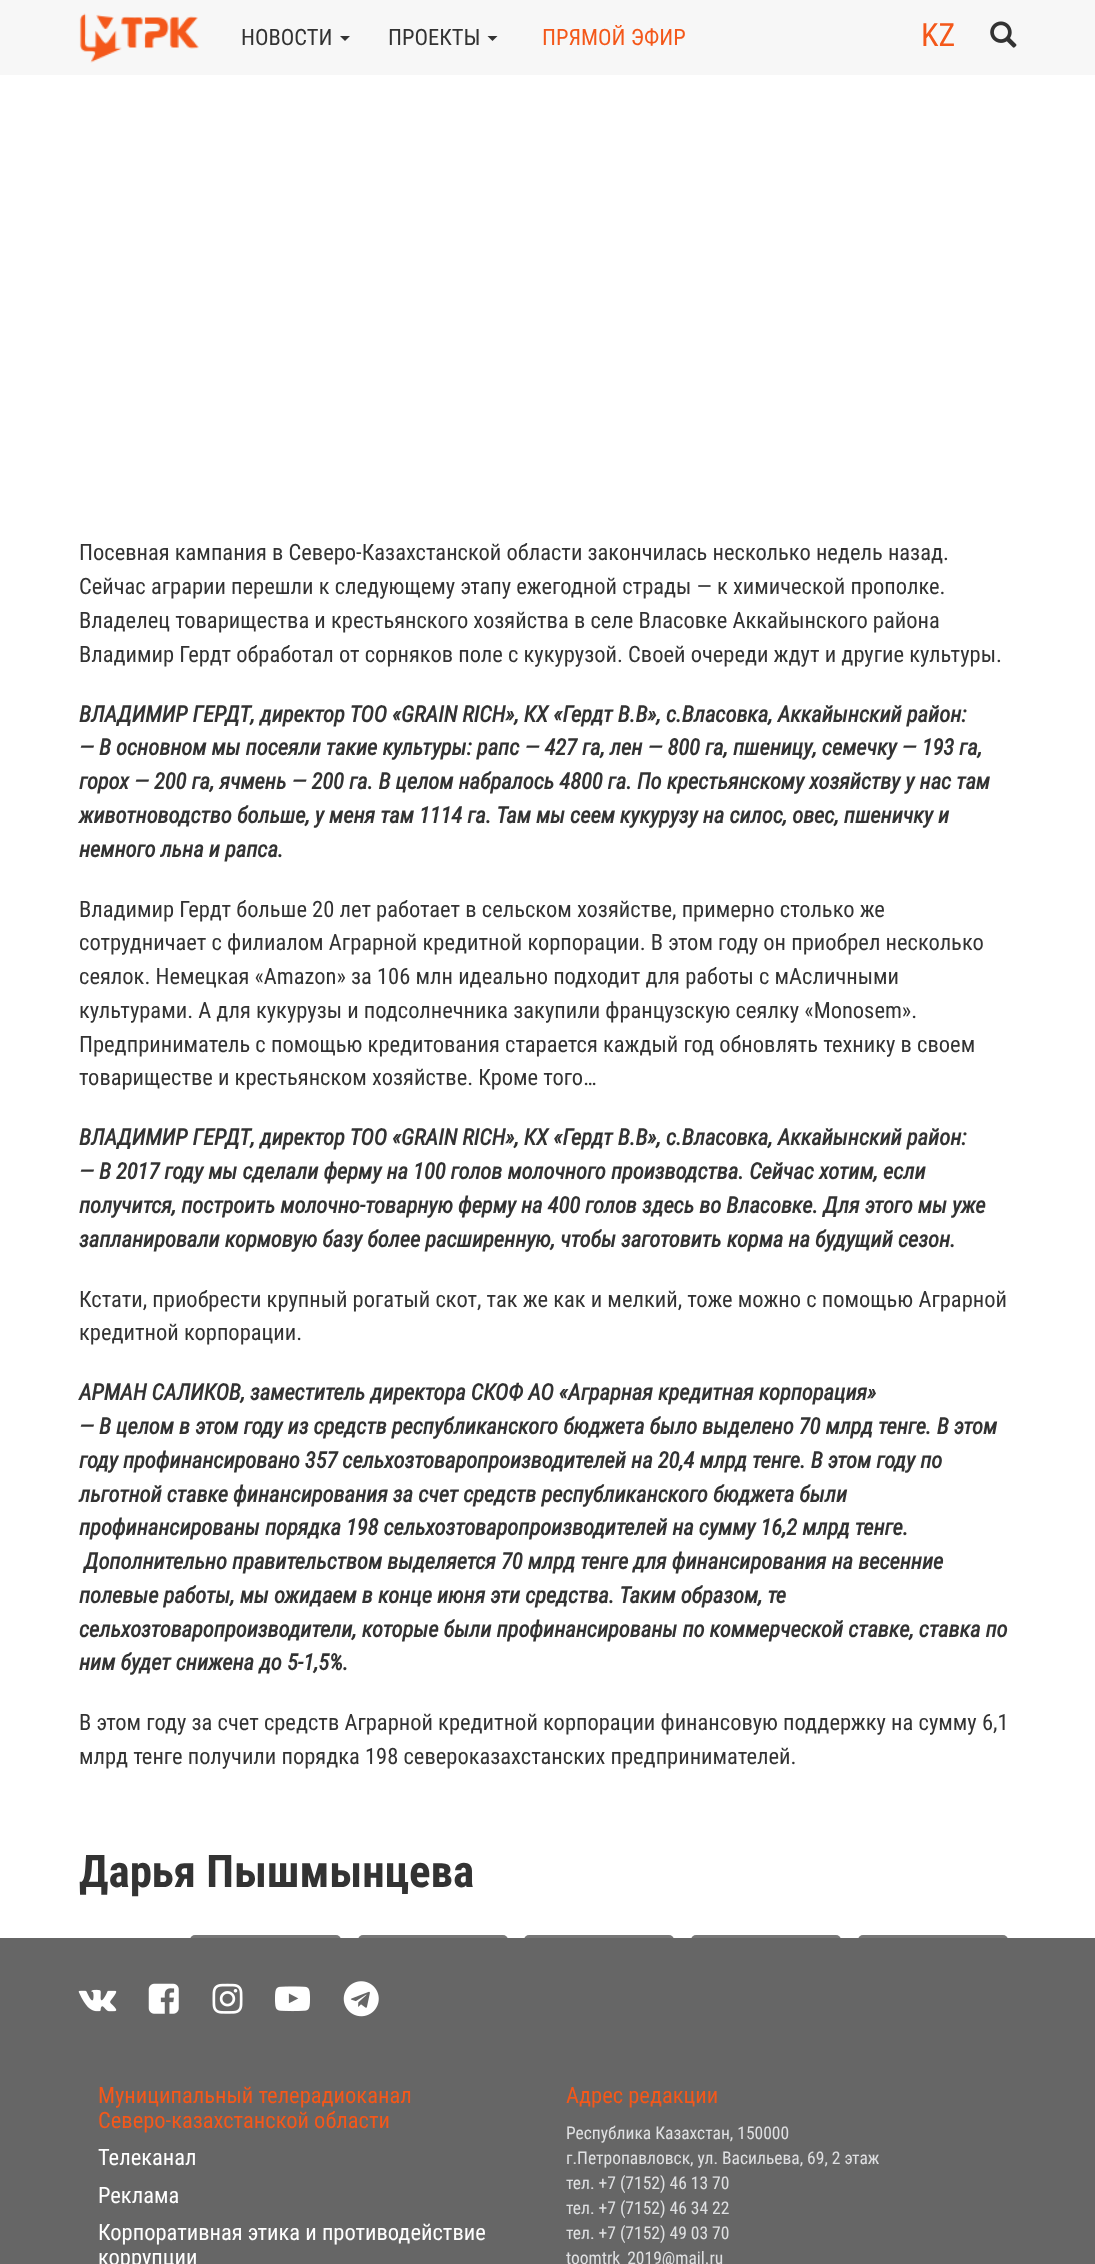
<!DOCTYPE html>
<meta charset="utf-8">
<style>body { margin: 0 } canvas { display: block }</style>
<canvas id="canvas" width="1095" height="2264"></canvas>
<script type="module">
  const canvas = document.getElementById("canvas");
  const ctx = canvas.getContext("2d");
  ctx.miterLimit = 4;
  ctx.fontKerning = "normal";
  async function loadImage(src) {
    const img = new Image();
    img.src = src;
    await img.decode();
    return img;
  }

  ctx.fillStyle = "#ffffff";
  ctx.fillRect(0, 0, 1095, 2264);
  ctx.fillStyle = "#f7f7f7";
  ctx.fillRect(0, 0, 1095, 75);
  ctx.drawImage(await loadImage("img1.png"), 79, 13, 120, 50);
  ctx.font = "22.5px Roboto Condensed";
  ctx.fillStyle = "#333333";
  ctx.fillText("НОВОСТИ", 241, 45);
  ctx.beginPath();
  ctx.moveTo(340, 36);
  ctx.lineTo(350, 36);
  ctx.lineTo(345, 41);
  ctx.closePath();
  ctx.fill();
  ctx.fillText("ПРОЕКТЫ", 388, 45);
  ctx.beginPath();
  ctx.moveTo(487.5, 36);
  ctx.lineTo(497.5, 36);
  ctx.lineTo(492.5, 41);
  ctx.closePath();
  ctx.fill();
  ctx.fillStyle = "#f4581a";
  ctx.fillText("ПРЯМОЙ ЭФИР", 542, 45);
  ctx.font = "32px Roboto Condensed";
  ctx.fillText("KZ", 921, 46);
  ctx.drawImage(await loadImage("img2.png"), 990, 21, 27, 27);
  ctx.font = "22.5px Roboto Condensed";
  ctx.fillStyle = "#333333";
  ctx.fillText("Посевная кампания в Северо-Казахстанской области закончилась несколько недель назад.", 79, 560);
  ctx.fillText("Сейчас аграрии перешли к следующему этапу ежегодной страды — к химической прополке.", 79, 594);
  ctx.fillText("Владелец товарищества и крестьянского хозяйства в селе Власовке Аккайынского района", 79, 628);
  ctx.fillText("Владимир Гердт обработал от сорняков поле с кукурузой. Своей очереди ждут и другие культуры.", 79, 662);
  ctx.font = "italic bold 22.5px Roboto Condensed";
  ctx.fillText("ВЛАДИМИР ГЕРДТ, директор ТОО «GRAIN RICH», КХ «Гердт В.В», с.Власовка, Аккайынский район:", 79, 722);
  ctx.fillText("— В основном мы посеяли такие культуры: рапс — 427 га, лен — 800 га, пшеницу, семечку — 193 га,", 79, 755);
  ctx.fillText("горох — 200 га, ячмень — 200 га. В целом набралось 4800 га. По крестьянскому хозяйству у нас там", 79, 789);
  ctx.fillText("животноводство больше, у меня там 1114 га. Там мы сеем кукурузу на силос, овес, пшеничку и", 79, 823);
  ctx.fillText("немного льна и рапса.", 79, 857);
  ctx.font = "22.5px Roboto Condensed";
  ctx.fillText("Владимир Гердт больше 20 лет работает в сельском хозяйстве, примерно столько же", 79, 917);
  ctx.fillText("сотрудничает с филиалом Аграрной кредитной корпорации. В этом году он приобрел несколько", 79, 950);
  ctx.fillText("сеялок. Немецкая «Amazon» за 106 млн идеально подходит для работы с мАсличными", 79, 984);
  ctx.fillText("культурами. А для кукурузы и подсолнечника закупили французскую сеялку «Monosem».", 79, 1018);
  ctx.fillText("Предприниматель с помощью кредитования старается каждый год обновлять технику в своем", 79, 1052);
  ctx.fillText("товариществе и крестьянском хозяйстве. Кроме того…", 79, 1085);
  ctx.font = "italic bold 22.5px Roboto Condensed";
  ctx.fillText("ВЛАДИМИР ГЕРДТ, директор ТОО «GRAIN RICH», КХ «Гердт В.В», с.Власовка, Аккайынский район:", 79, 1145);
  ctx.fillText("— В 2017 году мы сделали ферму на 100 голов молочного производства. Сейчас хотим, если", 79, 1179);
  ctx.fillText("получится, построить молочно-товарную ферму на 400 голов здесь во Власовке. Для этого мы уже", 79, 1213);
  ctx.fillText("запланировали кормовую базу более расширенную, чтобы заготовить корма на будущий сезон.", 79, 1247);
  ctx.font = "22.5px Roboto Condensed";
  ctx.fillText("Кстати, приобрести крупный рогатый скот, так же как и мелкий, тоже можно с помощью Аграрной", 79, 1307);
  ctx.fillText("кредитной корпорации.", 79, 1340);
  ctx.font = "italic bold 22.5px Roboto Condensed";
  ctx.fillText("АРМАН САЛИКОВ, заместитель директора СКОФ АО «Аграрная кредитная корпорация»", 79, 1400);
  ctx.fillText("— В целом в этом году из средств республиканского бюджета было выделено 70 млрд тенге. В этом", 79, 1434);
  ctx.fillText("году профинансировано 357 сельхозтоваропроизводителей на 20,4 млрд тенге. В этом году по", 79, 1468);
  ctx.fillText("льготной ставке финансирования за счет средств республиканского бюджета были", 79, 1502);
  ctx.fillText("профинансированы порядка 198 сельхозтоваропроизводителей на сумму 16,2 млрд тенге.", 79, 1535);
  ctx.fillText("Дополнительно правительством выделяется 70 млрд тенге для финансирования на весенние", 84, 1569);
  ctx.fillText("полевые работы, мы ожидаем в конце июня эти средства. Таким образом, те", 79, 1603);
  ctx.fillText("сельхозтоваропроизводители, которые были профинансированы по коммерческой ставке, ставка по", 79, 1637);
  ctx.fillText("ним будет снижена до 5-1,5%.", 79, 1670);
  ctx.font = "22.5px Roboto Condensed";
  ctx.fillText("В этом году за счет средств Аграрной кредитной корпорации финансовую поддержку на сумму 6,1", 79, 1730);
  ctx.fillText("млрд тенге получили порядка 198 североказахстанских предпринимателей.", 79, 1764);
  ctx.font = "bold 45px Roboto Condensed";
  ctx.fillText("Дарья Пышмынцева", 79, 1887);
  ctx.fillStyle = "#777777";
  ctx.beginPath();
  ctx.roundRect(190, 1935, 151, 45, 5);
  ctx.fill();
  ctx.beginPath();
  ctx.roundRect(358, 1935, 150, 45, 5);
  ctx.fill();
  ctx.beginPath();
  ctx.roundRect(524, 1935, 150, 45, 5);
  ctx.fill();
  ctx.beginPath();
  ctx.roundRect(691, 1935, 150, 45, 5);
  ctx.fill();
  ctx.beginPath();
  ctx.roundRect(858, 1935, 150, 45, 5);
  ctx.fill();
  ctx.fillStyle = "#666666";
  ctx.fillRect(0, 1938, 1095, 326);
  ctx.drawImage(await loadImage("img3.png"), 78, 1989, 39, 23);
  ctx.drawImage(await loadImage("img4.png"), 148, 1983, 31, 31);
  ctx.drawImage(await loadImage("img5.png"), 212, 1983, 31, 31);
  ctx.drawImage(await loadImage("img6.png"), 275, 1986, 35, 26);
  ctx.drawImage(await loadImage("img7.png"), 343, 1981, 36, 36);
  ctx.font = "22.5px Roboto Condensed";
  ctx.fillStyle = "#f4581a";
  ctx.fillText("Муниципальный телерадиоканал", 98, 2103);
  ctx.fillText("Северо-казахстанской области", 98, 2128);
  ctx.fillStyle = "#ffffff";
  ctx.fillText("Телеканал", 98, 2165);
  ctx.fillText("Реклама", 98, 2203);
  ctx.fillText("Корпоративная этика и противодействие", 98, 2240);
  ctx.fillText("коррупции", 98, 2265);
  ctx.fillStyle = "#f4581a";
  ctx.fillText("Адрес редакции", 566, 2103);
  ctx.font = "17.5px Roboto Condensed";
  ctx.fillStyle = "#dfe0e2";
  ctx.fillText("Республика Казахстан, 150000", 566, 2139);
  ctx.fillText("г.Петропавловск, ул. Васильева, 69, 2 этаж", 566, 2164);
  ctx.fillText("тел. +7 (7152) 46 13 70", 566, 2189);
  ctx.fillText("тел. +7 (7152) 46 34 22", 566, 2214);
  ctx.fillText("тел. +7 (7152) 49 03 70", 566, 2239);
  ctx.fillText("toomtrk_2019@mail.ru", 566, 2264);
</script>
